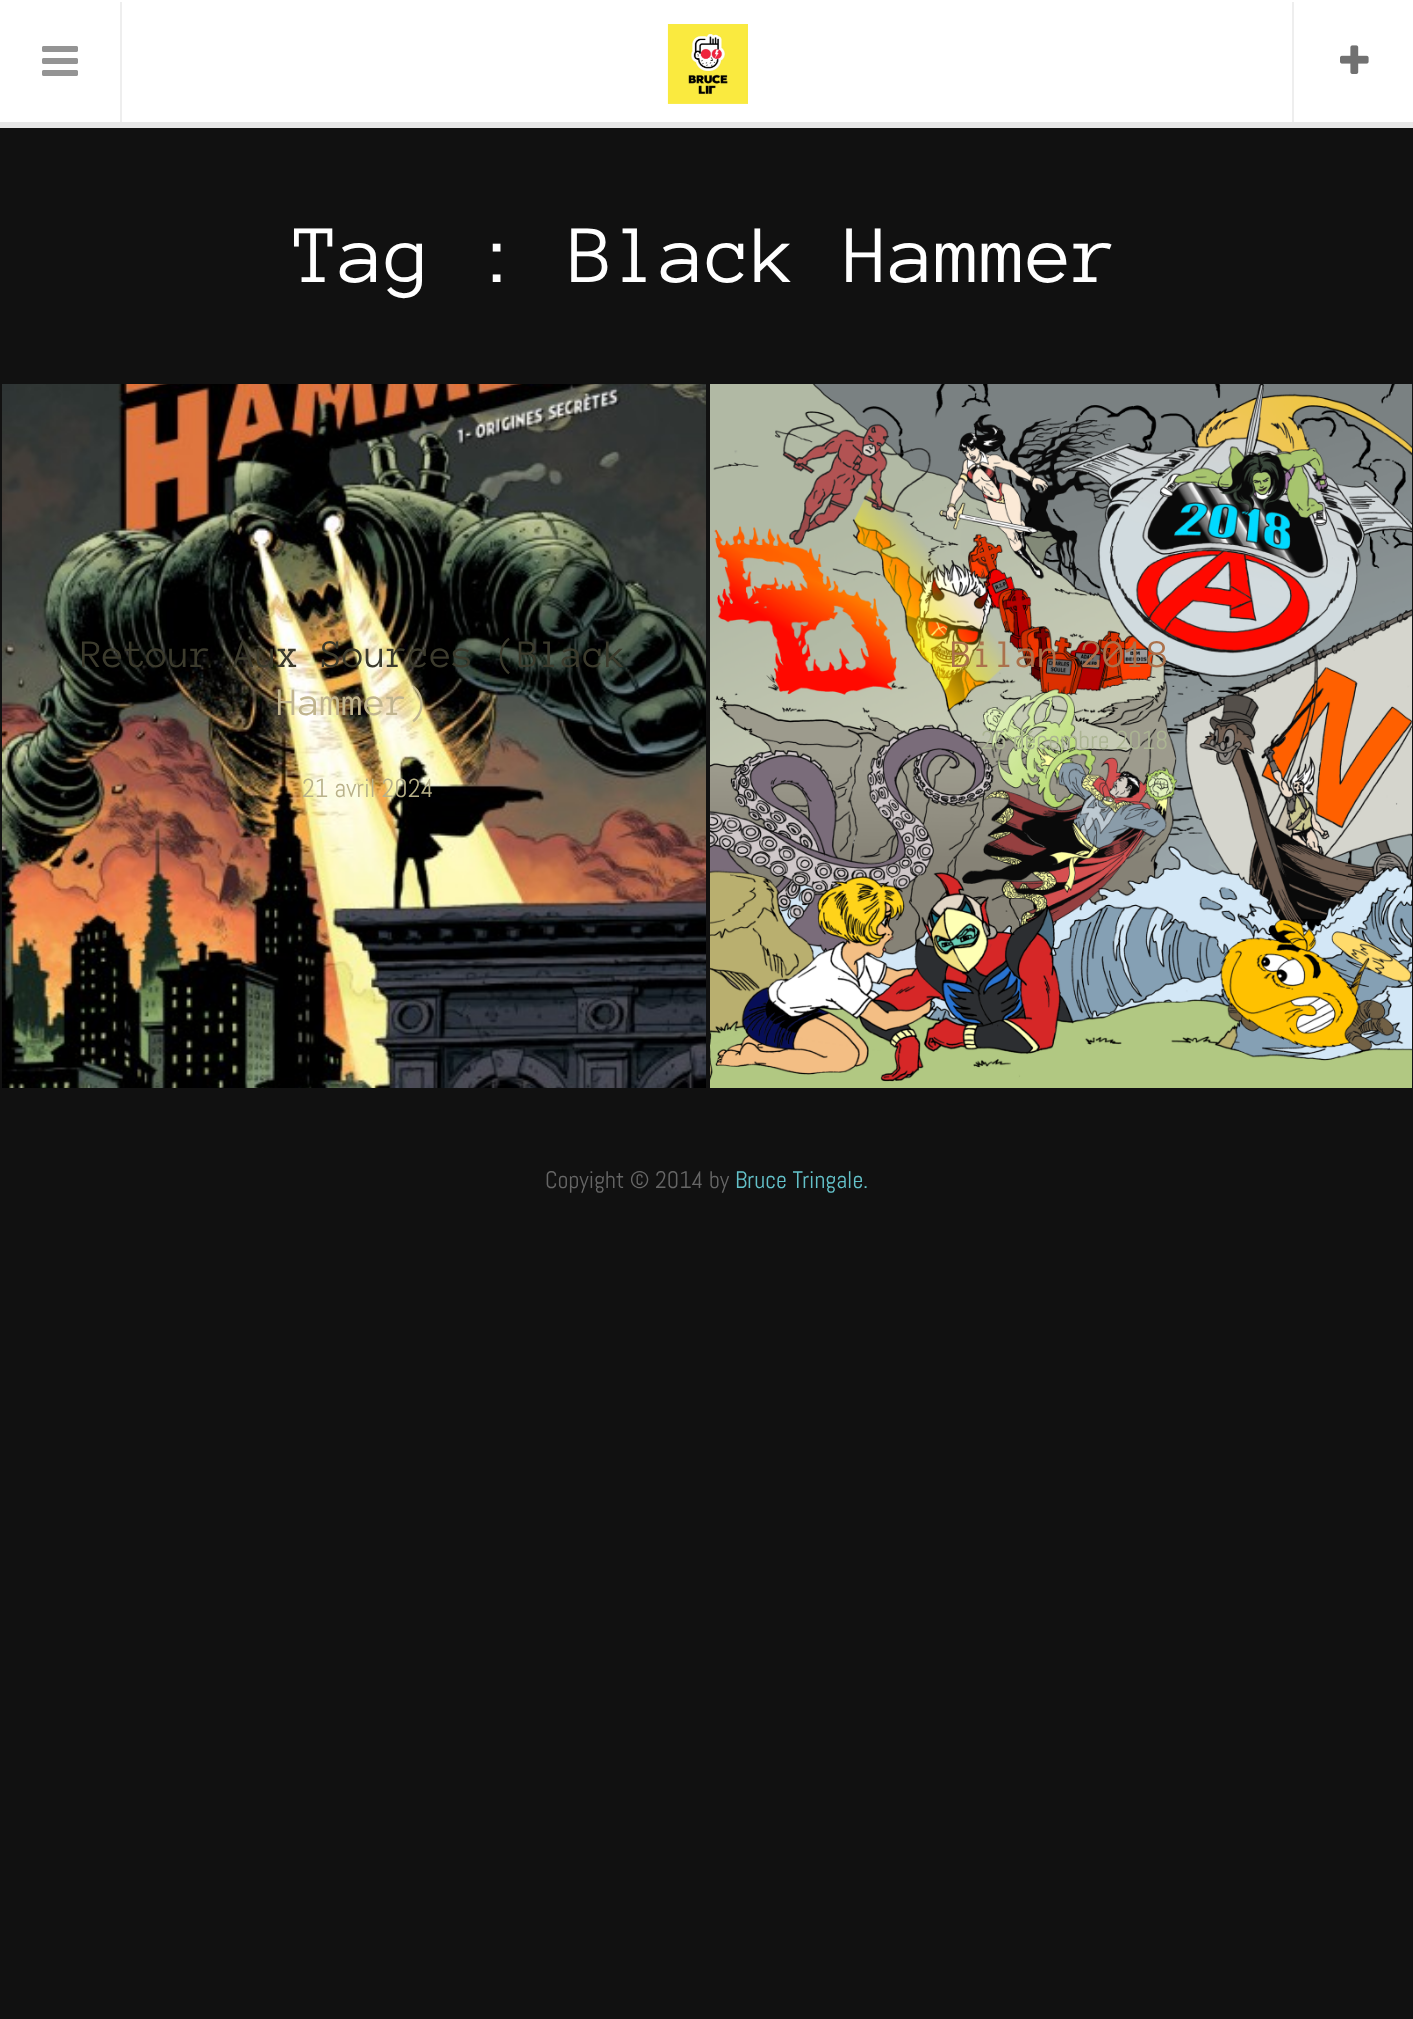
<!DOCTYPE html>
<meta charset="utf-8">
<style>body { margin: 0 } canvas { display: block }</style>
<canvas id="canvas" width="1413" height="2019"></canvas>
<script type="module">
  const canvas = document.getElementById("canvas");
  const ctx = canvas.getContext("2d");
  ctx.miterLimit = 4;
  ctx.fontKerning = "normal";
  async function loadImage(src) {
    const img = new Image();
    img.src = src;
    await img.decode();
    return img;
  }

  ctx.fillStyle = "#111111";
  ctx.fillRect(0, 0, 1413, 2019);
  ctx.fillStyle = "#ffffff";
  ctx.fillRect(0, 0, 1413, 122);
  ctx.fillStyle = "#e7e7e7";
  ctx.fillRect(0, 122, 1413, 6);
  ctx.fillStyle = "#eeeeee";
  ctx.fillRect(120, 2, 2, 120);
  ctx.drawImage(await loadImage("img1.png"), 42, 46, 36, 30);
  ctx.drawImage(await loadImage("img2.png"), 667, 24, 81, 80);
  ctx.fillRect(1292, 2, 2, 120);
  ctx.drawImage(await loadImage("img3.png"), 1340, 45, 29, 29);
  ctx.font = "84px Anonymous Pro";
  ctx.fillStyle = "#ffffff";
  ctx.fillText("Tag : Black Hammer", 294, 282);
  ctx.drawImage(await loadImage("img4.png"), 2, 384, 704, 704);
  ctx.font = "40px Anonymous Pro";
  ctx.fillStyle = "#3c3b2d";
  ctx.fillText("Retour Aux Sources (Black", 81, 667);
  ctx.fillStyle = "#c0b48e";
  ctx.fillText("Hammer)", 277, 715);
  ctx.font = "26px Abel";
  ctx.fillStyle = "#b8b189";
  ctx.fillText("21 avril 2024", 302, 797);
  ctx.fillStyle = "#ffffff";
  ctx.fillRect(785, 384, 519, 571);
  ctx.drawImage(await loadImage("img5.png"), 710, 384, 702, 704);
  ctx.font = "40px Anonymous Pro";
  ctx.fillStyle = "#ab714b";
  ctx.fillText("Bilan 2018", 951, 667);
  ctx.font = "26px Abel";
  ctx.fillStyle = "#abb492";
  ctx.fillText("25 décembre 2018", 981, 749);
  ctx.font = "24px Abel";
  ctx.fillStyle = "#666666";
  ctx.fillText("Copyight © 2014 by", 545, 1188);
  ctx.fillStyle = "#64c2ca";
  ctx.fillText("Bruce Tringale.", 735, 1188);
</script>
